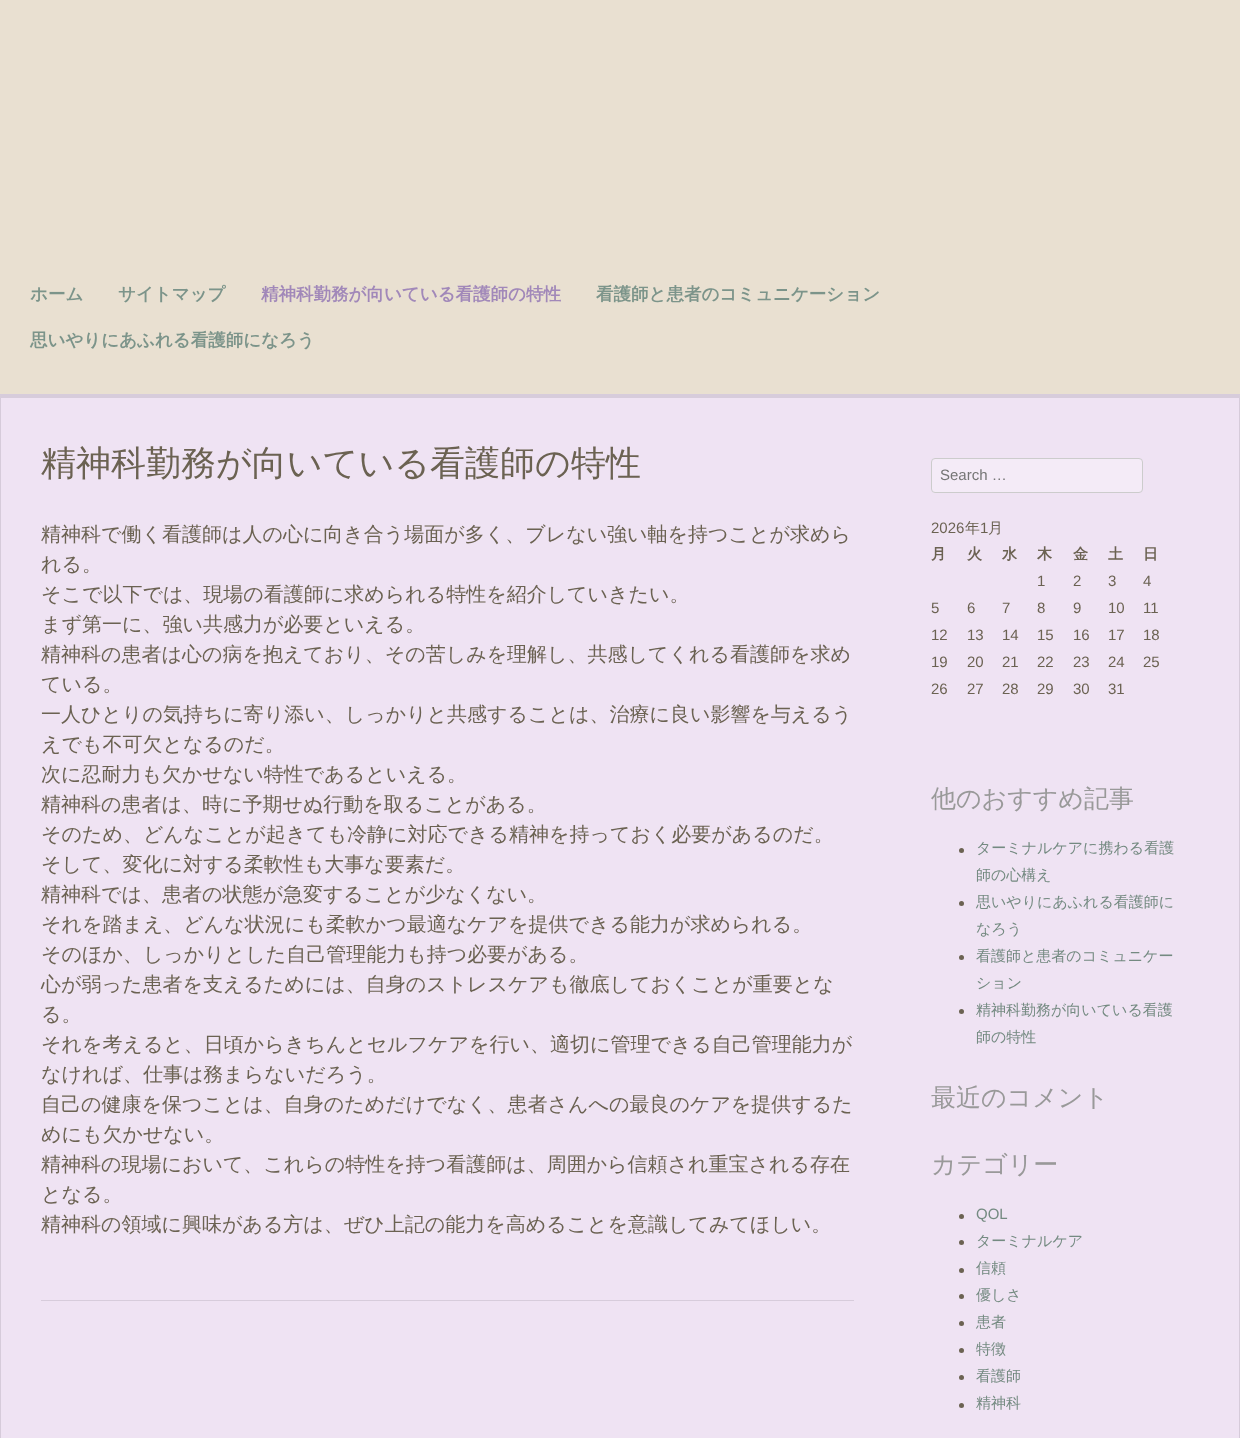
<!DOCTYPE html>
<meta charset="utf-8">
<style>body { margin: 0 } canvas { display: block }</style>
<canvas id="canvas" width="1240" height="1438"></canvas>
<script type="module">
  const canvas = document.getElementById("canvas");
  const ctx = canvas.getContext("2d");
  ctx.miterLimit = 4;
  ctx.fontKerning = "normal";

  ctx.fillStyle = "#e9e0d1";
  ctx.fillRect(0, 0, 1240, 1438);
  ctx.font = "bold 17.5px WenQuanYi Zen Hei";
  ctx.fillStyle = "#7c948a";
  ctx.fillText("ホーム", 30, 300);
  ctx.fillText("サイトマップ", 118, 300);
  ctx.fillStyle = "#a188b9";
  ctx.fillText("精神科勤務が向いている看護師の特性", 261, 300);
  ctx.fillStyle = "#7c948a";
  ctx.fillText("看護師と患者のコミュニケーション", 596, 300);
  ctx.fillText("思いやりにあふれる看護師になろう", 30, 346);
  ctx.fillStyle = "#efe3f3";
  ctx.fillRect(0, 394, 1240, 1044);
  ctx.fillStyle = "#d7ccdb";
  ctx.beginPath();
  ctx.moveTo(0, 394);
  ctx.lineTo(1240, 394);
  ctx.lineTo(1239, 398);
  ctx.lineTo(1, 398);
  ctx.closePath();
  ctx.fill();
  ctx.fillStyle = "rgba(0, 0, 0, 0.1)";
  ctx.beginPath();
  ctx.moveTo(1240, 394);
  ctx.lineTo(1240, 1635);
  ctx.lineTo(1239, 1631);
  ctx.lineTo(1239, 398);
  ctx.closePath();
  ctx.fill();
  ctx.beginPath();
  ctx.moveTo(0, 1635);
  ctx.lineTo(0, 394);
  ctx.lineTo(1, 398);
  ctx.lineTo(1, 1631);
  ctx.closePath();
  ctx.fill();
  ctx.fillStyle = "#d7ccdb";
  ctx.fillRect(41, 1300, 813, 1);
  ctx.font = "500 35px WenQuanYi Zen Hei";
  ctx.fillStyle = "#6b6252";
  ctx.fillText("精神科勤務が向いている看護師の特性", 41, 475);
  ctx.font = "500 20px WenQuanYi Zen Hei";
  ctx.fillText("精神科で働く看護師は人の心に向き合う場面が多く、ブレない強い軸を持つことが求めら", 41, 541);
  ctx.fillText("れる。", 41, 571);
  ctx.fillText("そこで以下では、現場の看護師に求められる特性を紹介していきたい。", 41, 601);
  ctx.fillText("まず第一に、強い共感力が必要といえる。", 41, 631);
  ctx.fillText("精神科の患者は心の病を抱えており、その苦しみを理解し、共感してくれる看護師を求め", 41, 661);
  ctx.fillText("ている。", 41, 691);
  ctx.fillText("一人ひとりの気持ちに寄り添い、しっかりと共感することは、治療に良い影響を与えるう", 41, 721);
  ctx.fillText("えでも不可欠となるのだ。", 41, 751);
  ctx.fillText("次に忍耐力も欠かせない特性であるといえる。", 41, 781);
  ctx.fillText("精神科の患者は、時に予期せぬ行動を取ることがある。", 41, 811);
  ctx.fillText("そのため、どんなことが起きても冷静に対応できる精神を持っておく必要があるのだ。", 41, 841);
  ctx.fillText("そして、変化に対する柔軟性も大事な要素だ。", 41, 871);
  ctx.fillText("精神科では、患者の状態が急変することが少なくない。", 41, 901);
  ctx.fillText("それを踏まえ、どんな状況にも柔軟かつ最適なケアを提供できる能力が求められる。", 41, 931);
  ctx.fillText("そのほか、しっかりとした自己管理能力も持つ必要がある。", 41, 961);
  ctx.fillText("心が弱った患者を支えるためには、自身のストレスケアも徹底しておくことが重要とな", 41, 991);
  ctx.fillText("る。", 41, 1021);
  ctx.fillText("それを考えると、日頃からきちんとセルフケアを行い、適切に管理できる自己管理能力が", 41, 1051);
  ctx.fillText("なければ、仕事は務まらないだろう。", 41, 1081);
  ctx.fillText("自己の健康を保つことは、自身のためだけでなく、患者さんへの最良のケアを提供するた", 41, 1111);
  ctx.fillText("めにも欠かせない。", 41, 1141);
  ctx.fillText("精神科の現場において、これらの特性を持つ看護師は、周囲から信頼され重宝される存在", 41, 1171);
  ctx.fillText("となる。", 41, 1201);
  ctx.fillText("精神科の領域に興味がある方は、ぜひ上記の能力を高めることを意識してみてほしい。", 41, 1231);
  ctx.fillStyle = "#f4ebf7";
  ctx.beginPath();
  ctx.roundRect(931.5, 458.5, 211, 34, 3.5);
  ctx.fill();
  ctx.strokeStyle = "#cccccc";
  ctx.stroke();
  ctx.font = "15px Liberation Sans";
  ctx.fillStyle = "#757575";
  ctx.fillText("Search …", 940, 480);
  ctx.fillStyle = "#6b6252";
  ctx.fillText("2026", 931, 533);
  ctx.font = "500 15px WenQuanYi Zen Hei";
  ctx.fillText("年", 965, 533);
  ctx.font = "15px Liberation Sans";
  ctx.fillText("1", 980, 533);
  ctx.font = "500 15px WenQuanYi Zen Hei";
  ctx.fillText("月", 988, 533);
  ctx.font = "bold 15px WenQuanYi Zen Hei";
  ctx.fillText("月", 931, 559);
  ctx.fillText("火", 967, 559);
  ctx.fillText("水", 1002, 559);
  ctx.fillText("木", 1037, 559);
  ctx.fillText("金", 1073, 559);
  ctx.fillText("土", 1108, 559);
  ctx.fillText("日", 1143, 559);
  ctx.font = "15px Liberation Sans";
  ctx.fillText("1", 1037, 586);
  ctx.fillText("2", 1073, 586);
  ctx.fillText("3", 1108, 586);
  ctx.fillText("4", 1143, 586);
  ctx.fillText("5", 931, 613);
  ctx.fillText("6", 967, 613);
  ctx.fillText("7", 1002, 613);
  ctx.fillText("8", 1037, 613);
  ctx.fillText("9", 1073, 613);
  ctx.fillText("10", 1108, 613);
  ctx.fillText("11", 1143, 613);
  ctx.fillText("12", 931, 640);
  ctx.fillText("13", 967, 640);
  ctx.fillText("14", 1002, 640);
  ctx.fillText("15", 1037, 640);
  ctx.fillText("16", 1073, 640);
  ctx.fillText("17", 1108, 640);
  ctx.fillText("18", 1143, 640);
  ctx.fillText("19", 931, 667);
  ctx.fillText("20", 967, 667);
  ctx.fillText("21", 1002, 667);
  ctx.fillText("22", 1037, 667);
  ctx.fillText("23", 1073, 667);
  ctx.fillText("24", 1108, 667);
  ctx.fillText("25", 1143, 667);
  ctx.fillText("26", 931, 694);
  ctx.fillText("27", 967, 694);
  ctx.fillText("28", 1002, 694);
  ctx.fillText("29", 1037, 694);
  ctx.fillText("30", 1073, 694);
  ctx.fillText("31", 1108, 694);
  ctx.font = "500 25px WenQuanYi Zen Hei";
  ctx.fillStyle = "#999999";
  ctx.fillText("他のおすすめ記事", 931, 807);
  ctx.fillStyle = "#6b6252";
  ctx.beginPath();
  ctx.arc(961.5, 850.5, 2.5, 0, Math.PI * 2);
  ctx.fill();
  ctx.font = "500 15px WenQuanYi Zen Hei";
  ctx.fillStyle = "#748a81";
  ctx.fillText("ターミナルケアに携わる看護", 976, 853);
  ctx.fillText("師の心構え", 976, 880);
  ctx.fillStyle = "#6b6252";
  ctx.beginPath();
  ctx.arc(961.5, 903.5, 2.5, 0, Math.PI * 2);
  ctx.fill();
  ctx.fillStyle = "#748a81";
  ctx.fillText("思いやりにあふれる看護師に", 976, 907);
  ctx.fillText("なろう", 976, 934);
  ctx.fillStyle = "#6b6252";
  ctx.beginPath();
  ctx.arc(961.5, 957.5, 2.5, 0, Math.PI * 2);
  ctx.fill();
  ctx.fillStyle = "#748a81";
  ctx.fillText("看護師と患者のコミュニケー", 976, 961);
  ctx.fillText("ション", 976, 988);
  ctx.fillStyle = "#6b6252";
  ctx.beginPath();
  ctx.arc(961.5, 1011.5, 2.5, 0, Math.PI * 2);
  ctx.fill();
  ctx.fillStyle = "#748a81";
  ctx.fillText("精神科勤務が向いている看護", 976, 1015);
  ctx.fillText("師の特性", 976, 1042);
  ctx.font = "500 25px WenQuanYi Zen Hei";
  ctx.fillStyle = "#999999";
  ctx.fillText("最近のコメント", 931, 1106);
  ctx.fillText("カテゴリー", 931, 1173);
  ctx.fillStyle = "#6b6252";
  ctx.beginPath();
  ctx.arc(961.5, 1216.5, 2.5, 0, Math.PI * 2);
  ctx.fill();
  ctx.font = "15px Liberation Sans";
  ctx.fillStyle = "#748a81";
  ctx.fillText("QOL", 976, 1219);
  ctx.fillStyle = "#6b6252";
  ctx.beginPath();
  ctx.arc(961.5, 1242.5, 2.5, 0, Math.PI * 2);
  ctx.fill();
  ctx.font = "500 15px WenQuanYi Zen Hei";
  ctx.fillStyle = "#748a81";
  ctx.fillText("ターミナルケア", 976, 1246);
  ctx.fillStyle = "#6b6252";
  ctx.beginPath();
  ctx.arc(961.5, 1270.5, 2.5, 0, Math.PI * 2);
  ctx.fill();
  ctx.fillStyle = "#748a81";
  ctx.fillText("信頼", 976, 1273);
  ctx.fillStyle = "#6b6252";
  ctx.beginPath();
  ctx.arc(961.5, 1296.5, 2.5, 0, Math.PI * 2);
  ctx.fill();
  ctx.fillStyle = "#748a81";
  ctx.fillText("優しさ", 976, 1300);
  ctx.fillStyle = "#6b6252";
  ctx.beginPath();
  ctx.arc(961.5, 1323.5, 2.5, 0, Math.PI * 2);
  ctx.fill();
  ctx.fillStyle = "#748a81";
  ctx.fillText("患者", 976, 1327);
  ctx.fillStyle = "#6b6252";
  ctx.beginPath();
  ctx.arc(961.5, 1350.5, 2.5, 0, Math.PI * 2);
  ctx.fill();
  ctx.fillStyle = "#748a81";
  ctx.fillText("特徴", 976, 1354);
  ctx.fillStyle = "#6b6252";
  ctx.beginPath();
  ctx.arc(961.5, 1377.5, 2.5, 0, Math.PI * 2);
  ctx.fill();
  ctx.fillStyle = "#748a81";
  ctx.fillText("看護師", 976, 1381);
  ctx.fillStyle = "#6b6252";
  ctx.beginPath();
  ctx.arc(961.5, 1405.5, 2.5, 0, Math.PI * 2);
  ctx.fill();
  ctx.fillStyle = "#748a81";
  ctx.fillText("精神科", 976, 1408);
</script>
